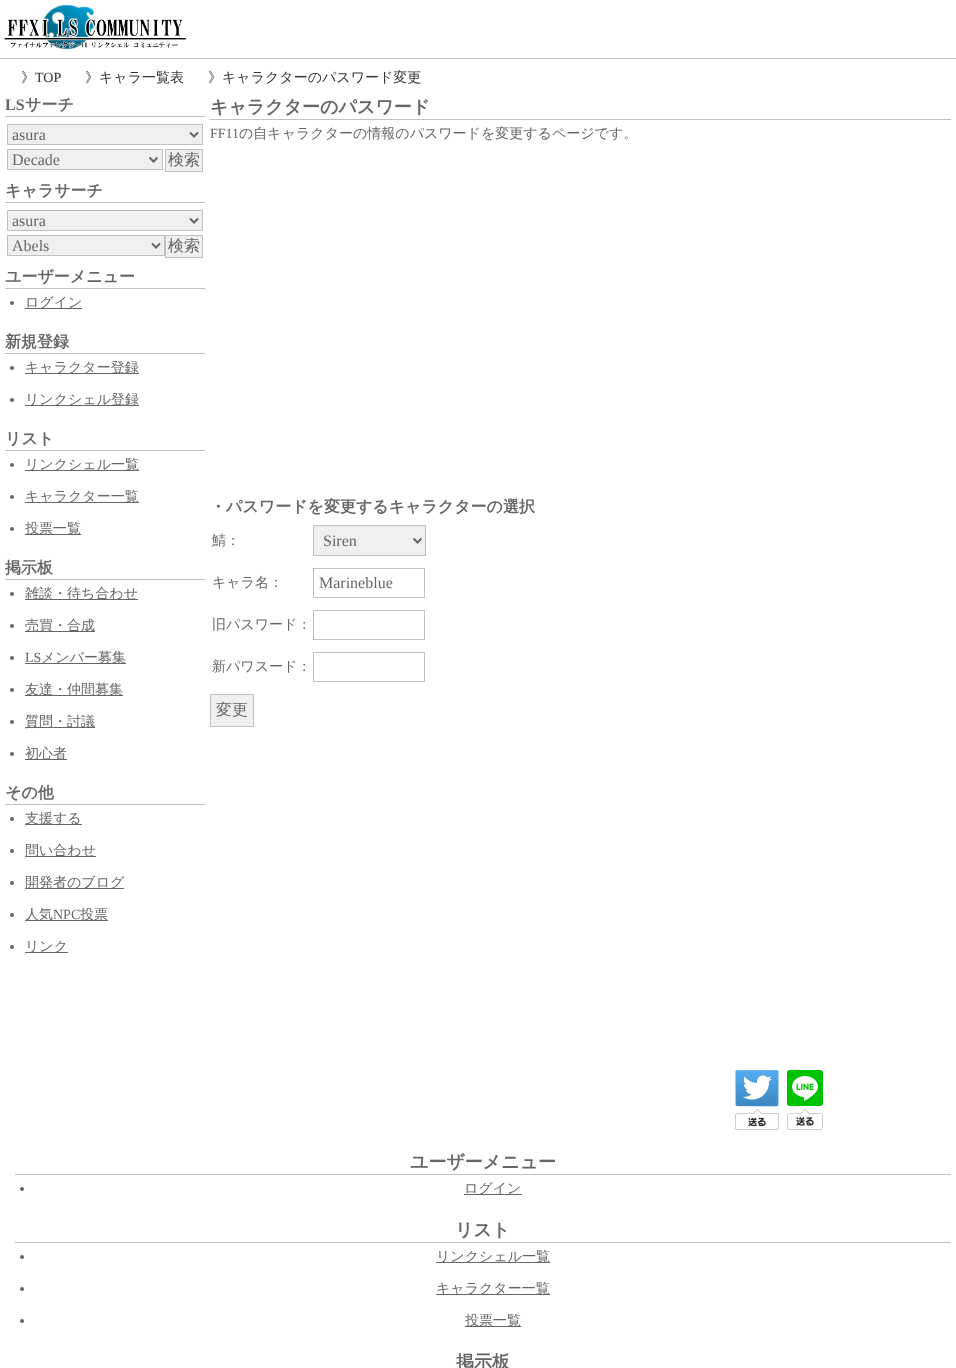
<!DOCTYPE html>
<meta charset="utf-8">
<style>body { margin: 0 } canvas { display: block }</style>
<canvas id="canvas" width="956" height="1368"></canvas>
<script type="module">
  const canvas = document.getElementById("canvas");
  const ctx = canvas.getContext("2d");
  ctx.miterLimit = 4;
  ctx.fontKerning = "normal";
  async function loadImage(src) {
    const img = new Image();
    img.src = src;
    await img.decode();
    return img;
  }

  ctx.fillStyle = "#ffffff";
  ctx.fillRect(0, 0, 956, 1368);
  ctx.fillStyle = "#c0c0c0";
  ctx.fillRect(0, 58, 956, 1);
  ctx.drawImage(await loadImage("img1.png"), 4, 4, 182, 46);
  ctx.font = "500 14px WenQuanYi Zen Hei";
  ctx.fillStyle = "#333333";
  ctx.fillText("》", 21, 82);
  ctx.font = "14px Liberation Serif";
  ctx.fillText("TOP", 35, 82);
  ctx.font = "500 14px WenQuanYi Zen Hei";
  ctx.fillText("》キャラ一覧表", 85, 82);
  ctx.fillText("》キャラクターのパスワード変更", 208, 82);
  ctx.fillStyle = "#c0c0c0";
  ctx.fillRect(5, 116, 200, 1);
  ctx.font = "bold 16px Liberation Serif";
  ctx.fillStyle = "#666666";
  ctx.fillText("LS", 5, 110);
  ctx.font = "bold 16px WenQuanYi Zen Hei";
  ctx.fillText("サーチ", 25, 110);
  ctx.fillStyle = "#efefef";
  ctx.beginPath();
  ctx.rect(7.5, 124.5, 195, 20);
  ctx.fill();
  ctx.strokeStyle = "#c0c0c0";
  ctx.stroke();
  ctx.beginPath();
  ctx.moveTo(190, 132.5);
  ctx.lineTo(194, 136.5);
  ctx.lineTo(198, 132.5);
  ctx.strokeStyle = "#666666";
  ctx.lineWidth = 2;
  ctx.stroke();
  ctx.font = "16px Liberation Serif";
  ctx.fillStyle = "#666666";
  ctx.fillText("asura", 12, 140);
  ctx.fillStyle = "#efefef";
  ctx.beginPath();
  ctx.rect(7.5, 149.5, 155, 20);
  ctx.fill();
  ctx.strokeStyle = "#c0c0c0";
  ctx.lineWidth = 1;
  ctx.stroke();
  ctx.beginPath();
  ctx.moveTo(149.5, 157.5);
  ctx.lineTo(153.5, 161.5);
  ctx.lineTo(157.5, 157.5);
  ctx.strokeStyle = "#666666";
  ctx.lineWidth = 2;
  ctx.stroke();
  ctx.fillStyle = "#666666";
  ctx.fillText("Decade", 12, 165);
  ctx.fillStyle = "#efefef";
  ctx.beginPath();
  ctx.rect(165.5, 149.5, 37, 22);
  ctx.fill();
  ctx.strokeStyle = "#c0c0c0";
  ctx.lineWidth = 1;
  ctx.stroke();
  ctx.font = "500 16px WenQuanYi Zen Hei";
  ctx.fillStyle = "#666666";
  ctx.fillText("検索", 168, 165);
  ctx.fillStyle = "#c0c0c0";
  ctx.fillRect(5, 202, 200, 1);
  ctx.font = "bold 16px WenQuanYi Zen Hei";
  ctx.fillStyle = "#666666";
  ctx.fillText("キャラサーチ", 5, 196);
  ctx.fillStyle = "#efefef";
  ctx.beginPath();
  ctx.rect(7.5, 210.5, 195, 20);
  ctx.fill();
  ctx.stroke();
  ctx.beginPath();
  ctx.moveTo(190, 218.5);
  ctx.lineTo(194, 222.5);
  ctx.lineTo(198, 218.5);
  ctx.strokeStyle = "#666666";
  ctx.lineWidth = 2;
  ctx.stroke();
  ctx.font = "16px Liberation Serif";
  ctx.fillStyle = "#666666";
  ctx.fillText("asura", 12, 226);
  ctx.fillStyle = "#efefef";
  ctx.beginPath();
  ctx.rect(7.5, 235.5, 157, 20);
  ctx.fill();
  ctx.strokeStyle = "#c0c0c0";
  ctx.lineWidth = 1;
  ctx.stroke();
  ctx.beginPath();
  ctx.moveTo(152, 243.5);
  ctx.lineTo(156, 247.5);
  ctx.lineTo(160, 243.5);
  ctx.strokeStyle = "#666666";
  ctx.lineWidth = 2;
  ctx.stroke();
  ctx.fillStyle = "#666666";
  ctx.fillText("Abels", 12, 251);
  ctx.fillStyle = "#efefef";
  ctx.beginPath();
  ctx.rect(165.5, 235.5, 37, 22);
  ctx.fill();
  ctx.strokeStyle = "#c0c0c0";
  ctx.lineWidth = 1;
  ctx.stroke();
  ctx.font = "500 16px WenQuanYi Zen Hei";
  ctx.fillStyle = "#666666";
  ctx.fillText("検索", 168, 251);
  ctx.fillStyle = "#c0c0c0";
  ctx.fillRect(5, 288, 200, 1);
  ctx.font = "bold 16px WenQuanYi Zen Hei";
  ctx.fillStyle = "#666666";
  ctx.fillText("ユーザーメニュー", 5, 282);
  ctx.beginPath();
  ctx.arc(12, 303, 2, 0, Math.PI * 2);
  ctx.fill();
  ctx.fillRect(25, 308, 57, 1);
  ctx.font = "500 14px WenQuanYi Zen Hei";
  ctx.fillText("ログイン", 25, 307);
  ctx.fillStyle = "#c0c0c0";
  ctx.fillRect(5, 353, 200, 1);
  ctx.font = "bold 16px WenQuanYi Zen Hei";
  ctx.fillStyle = "#666666";
  ctx.fillText("新規登録", 5, 347);
  ctx.beginPath();
  ctx.arc(12, 368, 2, 0, Math.PI * 2);
  ctx.fill();
  ctx.fillRect(25, 373, 114, 1);
  ctx.font = "500 14px WenQuanYi Zen Hei";
  ctx.fillText("キャラクター登録", 25, 372);
  ctx.beginPath();
  ctx.arc(12, 400, 2, 0, Math.PI * 2);
  ctx.fill();
  ctx.fillRect(25, 405, 114, 1);
  ctx.fillText("リンクシェル登録", 25, 404);
  ctx.fillStyle = "#c0c0c0";
  ctx.fillRect(5, 450, 200, 1);
  ctx.font = "bold 16px WenQuanYi Zen Hei";
  ctx.fillStyle = "#666666";
  ctx.fillText("リスト", 5, 444);
  ctx.beginPath();
  ctx.arc(12, 465, 2, 0, Math.PI * 2);
  ctx.fill();
  ctx.fillRect(25, 470, 114, 1);
  ctx.font = "500 14px WenQuanYi Zen Hei";
  ctx.fillText("リンクシェル一覧", 25, 469);
  ctx.beginPath();
  ctx.arc(12, 497, 2, 0, Math.PI * 2);
  ctx.fill();
  ctx.fillRect(25, 502, 114, 1);
  ctx.fillText("キャラクター一覧", 25, 501);
  ctx.beginPath();
  ctx.arc(12, 529, 2, 0, Math.PI * 2);
  ctx.fill();
  ctx.fillRect(25, 534, 56, 1);
  ctx.fillText("投票一覧", 25, 533);
  ctx.fillStyle = "#c0c0c0";
  ctx.fillRect(5, 579, 200, 1);
  ctx.font = "bold 16px WenQuanYi Zen Hei";
  ctx.fillStyle = "#666666";
  ctx.fillText("掲示板", 5, 573);
  ctx.beginPath();
  ctx.arc(12, 594, 2, 0, Math.PI * 2);
  ctx.fill();
  ctx.fillRect(25, 599, 113, 1);
  ctx.font = "500 14px WenQuanYi Zen Hei";
  ctx.fillText("雑談・待ち合わせ", 25, 598);
  ctx.beginPath();
  ctx.arc(12, 626, 2, 0, Math.PI * 2);
  ctx.fill();
  ctx.fillRect(25, 631, 70, 1);
  ctx.fillText("売買・合成", 25, 630);
  ctx.beginPath();
  ctx.arc(12, 658, 2, 0, Math.PI * 2);
  ctx.fill();
  ctx.font = "14px Liberation Serif";
  ctx.fillText("LS", 25, 662);
  ctx.fillRect(25, 663, 101, 1);
  ctx.font = "500 14px WenQuanYi Zen Hei";
  ctx.fillText("メンバー募集", 41, 662);
  ctx.beginPath();
  ctx.arc(12, 690, 2, 0, Math.PI * 2);
  ctx.fill();
  ctx.fillRect(25, 695, 98, 1);
  ctx.fillText("友達・仲間募集", 25, 694);
  ctx.beginPath();
  ctx.arc(12, 722, 2, 0, Math.PI * 2);
  ctx.fill();
  ctx.fillRect(25, 727, 70, 1);
  ctx.fillText("質問・討議", 25, 726);
  ctx.beginPath();
  ctx.arc(12, 754, 2, 0, Math.PI * 2);
  ctx.fill();
  ctx.fillRect(25, 759, 42, 1);
  ctx.fillText("初心者", 25, 758);
  ctx.fillStyle = "#c0c0c0";
  ctx.fillRect(5, 804, 200, 1);
  ctx.font = "bold 16px WenQuanYi Zen Hei";
  ctx.fillStyle = "#666666";
  ctx.fillText("その他", 5, 798);
  ctx.beginPath();
  ctx.arc(12, 819, 2, 0, Math.PI * 2);
  ctx.fill();
  ctx.fillRect(25, 824, 57, 1);
  ctx.font = "500 14px WenQuanYi Zen Hei";
  ctx.fillText("支援する", 25, 823);
  ctx.beginPath();
  ctx.arc(12, 851, 2, 0, Math.PI * 2);
  ctx.fill();
  ctx.fillRect(25, 856, 71, 1);
  ctx.fillText("問い合わせ", 25, 855);
  ctx.beginPath();
  ctx.arc(12, 883, 2, 0, Math.PI * 2);
  ctx.fill();
  ctx.fillRect(25, 888, 99, 1);
  ctx.fillText("開発者のブログ", 25, 887);
  ctx.beginPath();
  ctx.arc(12, 915, 2, 0, Math.PI * 2);
  ctx.fill();
  ctx.fillRect(25, 920, 83, 1);
  ctx.fillText("人気", 25, 919);
  ctx.font = "14px Liberation Serif";
  ctx.fillText("NPC", 53, 919);
  ctx.font = "500 14px WenQuanYi Zen Hei";
  ctx.fillText("投票", 80, 919);
  ctx.beginPath();
  ctx.arc(12, 947, 2, 0, Math.PI * 2);
  ctx.fill();
  ctx.fillRect(25, 952, 43, 1);
  ctx.fillText("リンク", 25, 951);
  ctx.fillStyle = "#c0c0c0";
  ctx.fillRect(210, 119, 741, 1);
  ctx.font = "bold 18px WenQuanYi Zen Hei";
  ctx.fillStyle = "#666666";
  ctx.fillText("キャラクターのパスワード", 210, 113);
  ctx.font = "14px Liberation Serif";
  ctx.fillText("FF11", 210, 138);
  ctx.font = "500 14px WenQuanYi Zen Hei";
  ctx.fillText("の自キャラクターの情報のパスワードを変更するページです。", 239, 138);
  ctx.font = "bold 16px WenQuanYi Zen Hei";
  ctx.fillText("・パスワードを変更するキャラクターの選択", 210, 512);
  ctx.font = "500 14px WenQuanYi Zen Hei";
  ctx.fillText("鯖：", 212, 545);
  ctx.fillStyle = "#efefef";
  ctx.beginPath();
  ctx.rect(313.5, 525.5, 112, 30);
  ctx.fill();
  ctx.stroke();
  ctx.beginPath();
  ctx.moveTo(413.5, 538.5);
  ctx.lineTo(417.5, 542.5);
  ctx.lineTo(421.5, 538.5);
  ctx.strokeStyle = "#666666";
  ctx.lineWidth = 2;
  ctx.stroke();
  ctx.font = "16px Liberation Serif";
  ctx.fillStyle = "#666666";
  ctx.fillText("Siren", 323, 546);
  ctx.font = "500 14px WenQuanYi Zen Hei";
  ctx.fillText("キャラ名：", 212, 587);
  ctx.strokeStyle = "#c0c0c0";
  ctx.lineWidth = 1;
  ctx.strokeRect(313.5, 568.5, 111, 29);
  ctx.font = "16px Liberation Serif";
  ctx.fillText("Marineblue", 319, 588);
  ctx.font = "500 14px WenQuanYi Zen Hei";
  ctx.fillText("旧パスワード：", 212, 629);
  ctx.strokeRect(313.5, 610.5, 111, 29);
  ctx.fillText("新パワスード：", 212, 671);
  ctx.strokeRect(313.5, 652.5, 111, 29);
  ctx.fillStyle = "#efefef";
  ctx.beginPath();
  ctx.rect(210.5, 694.5, 43, 32);
  ctx.fill();
  ctx.stroke();
  ctx.font = "500 16px WenQuanYi Zen Hei";
  ctx.fillStyle = "#666666";
  ctx.fillText("変更", 216, 715);
  ctx.drawImage(await loadImage("img2.png"), 735, 1070, 44, 60);
  ctx.drawImage(await loadImage("img3.png"), 787, 1070, 36, 60);
  ctx.fillStyle = "#c0c0c0";
  ctx.fillRect(15, 1174, 936, 1);
  ctx.font = "bold 18px WenQuanYi Zen Hei";
  ctx.fillStyle = "#666666";
  ctx.fillText("ユーザーメニュー", 410, 1168);
  ctx.beginPath();
  ctx.arc(22, 1189, 2, 0, Math.PI * 2);
  ctx.fill();
  ctx.fillRect(464, 1194, 58, 1);
  ctx.font = "500 14px WenQuanYi Zen Hei";
  ctx.fillText("ログイン", 464, 1193);
  ctx.fillStyle = "#c0c0c0";
  ctx.fillRect(15, 1242, 936, 1);
  ctx.font = "bold 18px WenQuanYi Zen Hei";
  ctx.fillStyle = "#666666";
  ctx.fillText("リスト", 455, 1236);
  ctx.beginPath();
  ctx.arc(22, 1257, 2, 0, Math.PI * 2);
  ctx.fill();
  ctx.fillRect(436, 1262, 114, 1);
  ctx.font = "500 14px WenQuanYi Zen Hei";
  ctx.fillText("リンクシェル一覧", 436, 1261);
  ctx.beginPath();
  ctx.arc(22, 1289, 2, 0, Math.PI * 2);
  ctx.fill();
  ctx.fillRect(436, 1294, 114, 1);
  ctx.fillText("キャラクター一覧", 436, 1293);
  ctx.beginPath();
  ctx.arc(22, 1321, 2, 0, Math.PI * 2);
  ctx.fill();
  ctx.fillRect(465, 1326, 56, 1);
  ctx.fillText("投票一覧", 465, 1325);
  ctx.font = "bold 18px WenQuanYi Zen Hei";
  ctx.fillText("掲示板", 456, 1368);
</script>
